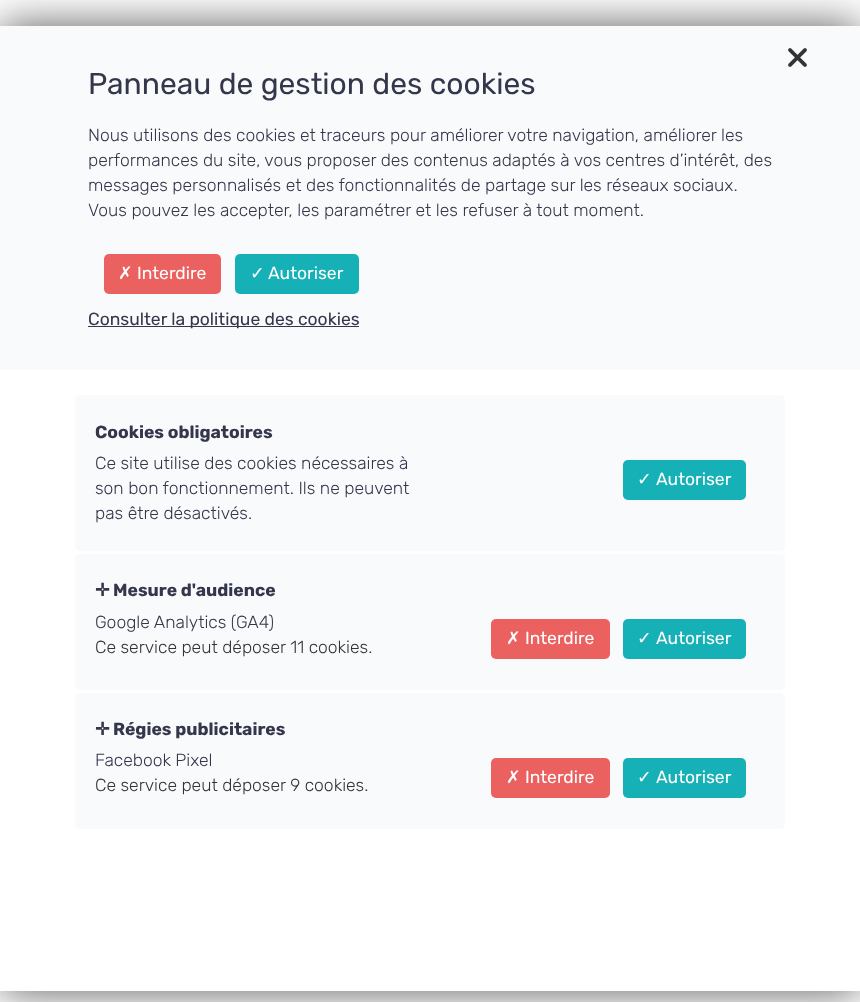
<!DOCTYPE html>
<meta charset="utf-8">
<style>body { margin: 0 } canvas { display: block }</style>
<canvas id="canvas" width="860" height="1002"></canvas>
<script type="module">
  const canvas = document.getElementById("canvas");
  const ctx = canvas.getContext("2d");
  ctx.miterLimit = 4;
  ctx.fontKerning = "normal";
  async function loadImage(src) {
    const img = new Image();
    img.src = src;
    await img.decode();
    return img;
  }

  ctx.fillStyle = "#ffffff";
  ctx.fillRect(0, 0, 860, 1002);
  ctx.save();
  ctx.beginPath();
  ctx.moveTo(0, 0);
  ctx.lineTo(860, 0);
  ctx.lineTo(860, 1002);
  ctx.lineTo(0, 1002);
  ctx.closePath();
  ctx.moveTo(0, 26);
  ctx.lineTo(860, 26);
  ctx.lineTo(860, 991);
  ctx.lineTo(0, 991);
  ctx.closePath();
  ctx.clip("evenodd");
  ctx.fillStyle = "#575757";
  ctx.filter = "blur(22px)";
  ctx.beginPath();
  ctx.rect(0, 26, 860, 965);
  ctx.fill();
  ctx.filter = "none";
  ctx.restore();
  ctx.fillStyle = "#f9fafb";
  ctx.fillRect(0, 26, 860, 344);
  ctx.drawImage(await loadImage("img1.png"), 788, 48, 19, 19);
  ctx.font = "30px Rubik";
  ctx.fillStyle = "#34364b";
  ctx.fillText("Panneau de gestion des cookies", 88, 94);
  ctx.font = "300 17.5px Rubik";
  ctx.fillText("Nous utilisons des cookies et traceurs pour améliorer votre navigation, améliorer les", 88, 141);
  ctx.fillText("performances du site, vous proposer des contenus adaptés à vos centres d’intérêt, des", 88, 166);
  ctx.fillText("messages personnalisés et des fonctionnalités de partage sur les réseaux sociaux.", 88, 191);
  ctx.fillText("Vous pouvez les accepter, les paramétrer et les refuser à tout moment.", 88, 216);
  ctx.fillStyle = "#eb615f";
  ctx.beginPath();
  ctx.roundRect(104, 254, 117, 40, 5);
  ctx.fill();
  ctx.font = "17.5px DejaVu Sans";
  ctx.fillStyle = "#ffffff";
  ctx.fillText("✗", 118, 279);
  ctx.font = "17.5px Rubik";
  ctx.fillText("Interdire", 137, 279);
  ctx.fillStyle = "#15b1b6";
  ctx.beginPath();
  ctx.roundRect(235, 254, 124, 40, 5);
  ctx.fill();
  ctx.font = "17.5px DejaVu Sans";
  ctx.fillStyle = "#ffffff";
  ctx.fillText("✓", 250, 279);
  ctx.font = "17.5px Rubik";
  ctx.fillText("Autoriser", 268, 279);
  ctx.fillStyle = "#34364b";
  ctx.fillRect(88, 326, 271, 1);
  ctx.fillText("Consulter la politique des cookies", 88, 325);
  ctx.fillStyle = "#f9fafb";
  ctx.beginPath();
  ctx.roundRect(75, 395, 710, 156, 5);
  ctx.fill();
  ctx.font = "bold 17.5px Rubik";
  ctx.fillStyle = "#34364b";
  ctx.fillText("Cookies obligatoires", 95, 438);
  ctx.font = "300 17.5px Rubik";
  ctx.fillText("Ce site utilise des cookies nécessaires à", 95, 469);
  ctx.fillText("son bon fonctionnement. Ils ne peuvent", 95, 494);
  ctx.fillText("pas être désactivés.", 95, 519);
  ctx.fillStyle = "#15b1b6";
  ctx.beginPath();
  ctx.roundRect(623, 460, 123, 40, 5);
  ctx.fill();
  ctx.font = "17.5px DejaVu Sans";
  ctx.fillStyle = "#ffffff";
  ctx.fillText("✓", 637, 485);
  ctx.font = "17.5px Rubik";
  ctx.fillText("Autoriser", 656, 485);
  ctx.fillStyle = "#f9fafb";
  ctx.beginPath();
  ctx.roundRect(75, 554, 710, 136, 5);
  ctx.fill();
  ctx.font = "bold 17.5px DejaVu Sans";
  ctx.fillStyle = "#34364b";
  ctx.fillText("✛", 95, 596);
  ctx.font = "bold 17.5px Rubik";
  ctx.fillText("Mesure d'audience", 113, 596);
  ctx.font = "300 17.5px Rubik";
  ctx.fillText("Google Analytics (GA4)", 95, 628);
  ctx.fillStyle = "#333333";
  ctx.fillText("Ce service peut déposer 11 cookies.", 95, 653);
  ctx.fillStyle = "#eb615f";
  ctx.beginPath();
  ctx.roundRect(491, 619, 119, 40, 5);
  ctx.fill();
  ctx.font = "17.5px DejaVu Sans";
  ctx.fillStyle = "#ffffff";
  ctx.fillText("✗", 506, 644);
  ctx.font = "17.5px Rubik";
  ctx.fillText("Interdire", 525, 644);
  ctx.fillStyle = "#15b1b6";
  ctx.beginPath();
  ctx.roundRect(623, 619, 123, 40, 5);
  ctx.fill();
  ctx.font = "17.5px DejaVu Sans";
  ctx.fillStyle = "#ffffff";
  ctx.fillText("✓", 637, 644);
  ctx.font = "17.5px Rubik";
  ctx.fillText("Autoriser", 656, 644);
  ctx.fillStyle = "#f9fafb";
  ctx.beginPath();
  ctx.roundRect(75, 693, 710, 136, 5);
  ctx.fill();
  ctx.font = "bold 17.5px DejaVu Sans";
  ctx.fillStyle = "#34364b";
  ctx.fillText("✛", 95, 735);
  ctx.font = "bold 17.5px Rubik";
  ctx.fillText("Régies publicitaires", 113, 735);
  ctx.font = "300 17.5px Rubik";
  ctx.fillText("Facebook Pixel", 95, 766);
  ctx.fillStyle = "#333333";
  ctx.fillText("Ce service peut déposer 9 cookies.", 95, 791);
  ctx.fillStyle = "#eb615f";
  ctx.beginPath();
  ctx.roundRect(491, 758, 119, 40, 5);
  ctx.fill();
  ctx.font = "17.5px DejaVu Sans";
  ctx.fillStyle = "#ffffff";
  ctx.fillText("✗", 506, 783);
  ctx.font = "17.5px Rubik";
  ctx.fillText("Interdire", 525, 783);
  ctx.fillStyle = "#15b1b6";
  ctx.beginPath();
  ctx.roundRect(623, 758, 123, 40, 5);
  ctx.fill();
  ctx.font = "17.5px DejaVu Sans";
  ctx.fillStyle = "#ffffff";
  ctx.fillText("✓", 637, 783);
  ctx.font = "17.5px Rubik";
  ctx.fillText("Autoriser", 656, 783);
</script>
